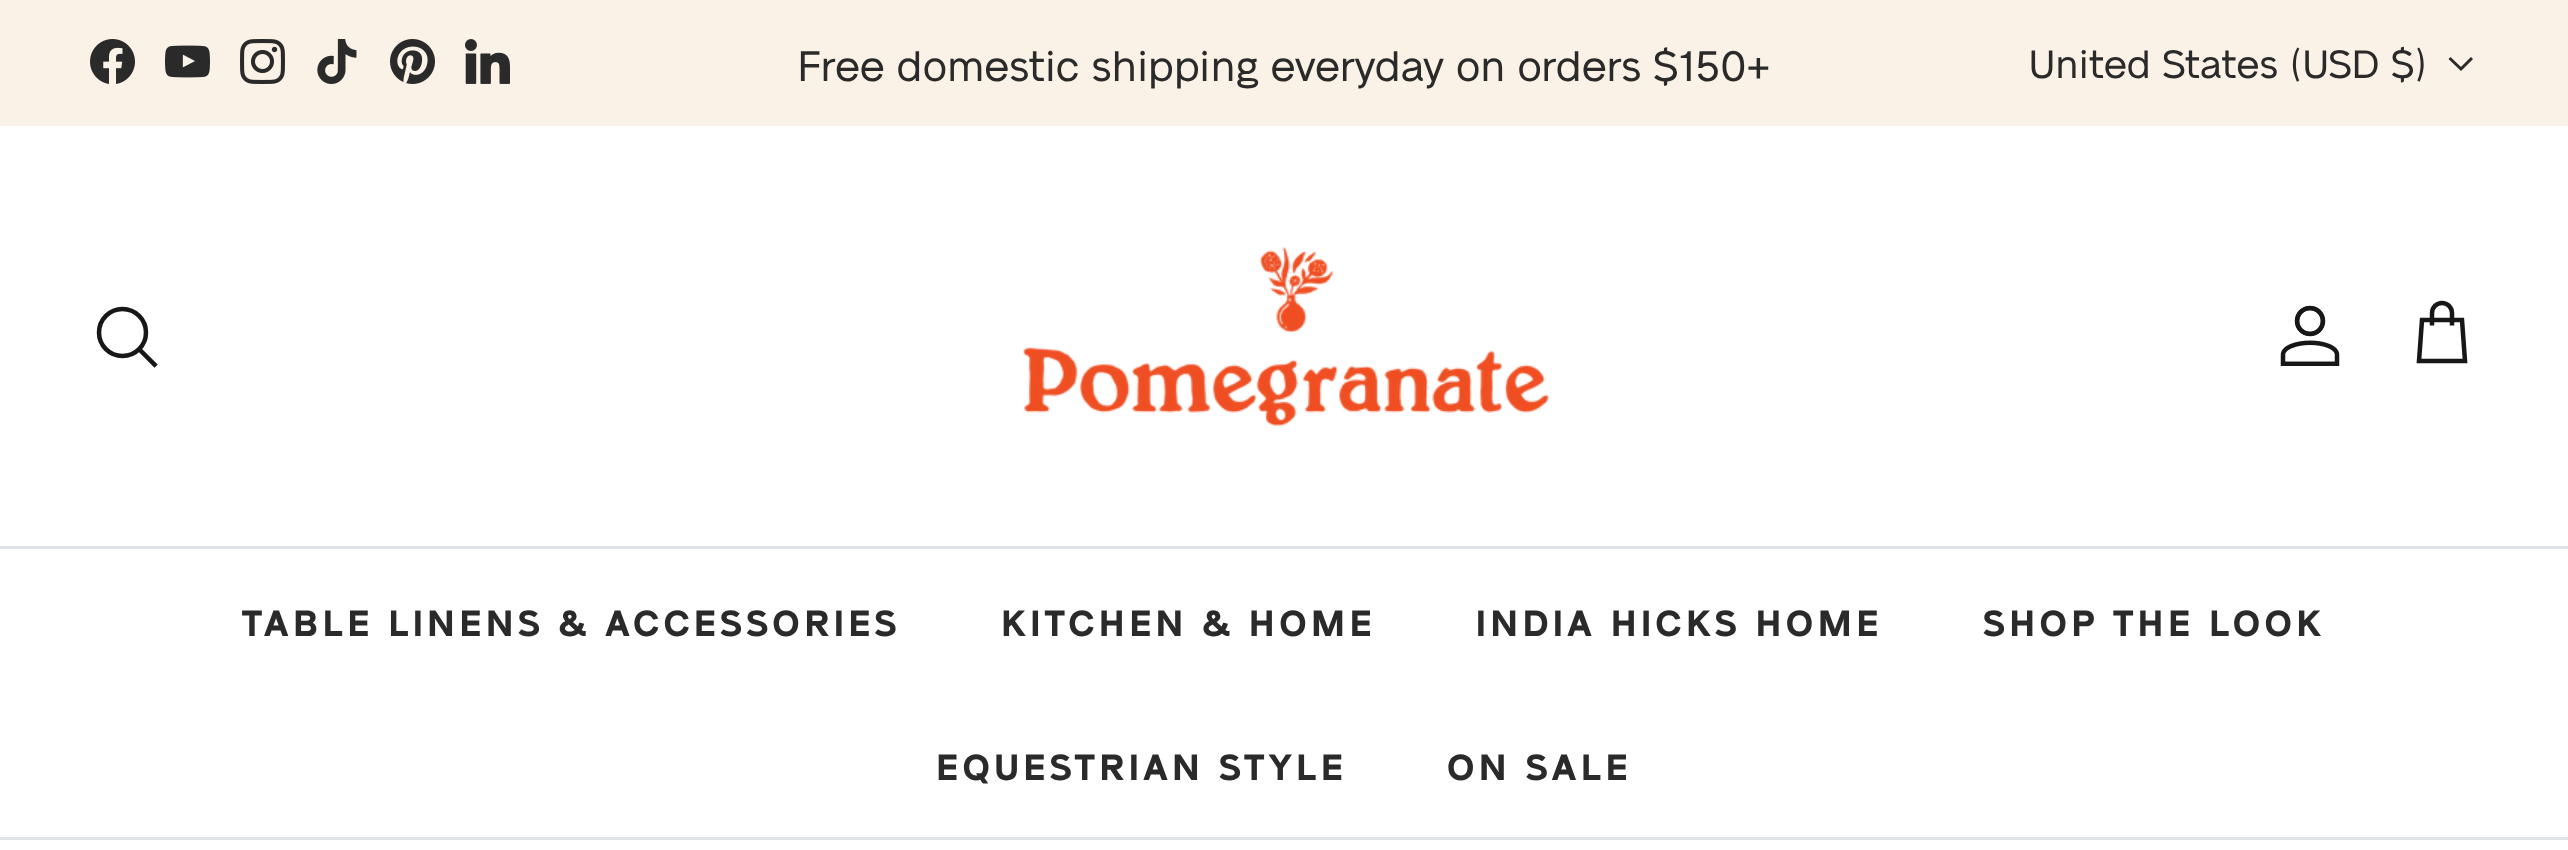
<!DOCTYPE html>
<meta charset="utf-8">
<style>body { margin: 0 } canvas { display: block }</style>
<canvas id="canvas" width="2568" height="850"></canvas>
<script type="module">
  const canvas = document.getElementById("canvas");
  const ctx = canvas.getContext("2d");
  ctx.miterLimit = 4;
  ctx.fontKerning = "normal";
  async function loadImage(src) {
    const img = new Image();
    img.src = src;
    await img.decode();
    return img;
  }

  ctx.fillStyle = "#ffffff";
  ctx.fillRect(0, 0, 2568, 850);
  ctx.fillStyle = "#faf2e6";
  ctx.fillRect(0, 0, 2568, 126);
  ctx.drawImage(await loadImage("img1.png"), 90, 39, 45, 45);
  ctx.drawImage(await loadImage("img2.png"), 165, 45, 45, 33);
  ctx.drawImage(await loadImage("img3.png"), 240, 39, 45, 45);
  ctx.drawImage(await loadImage("img4.png"), 317, 39, 40, 45);
  ctx.drawImage(await loadImage("img5.png"), 390, 39, 45, 45);
  ctx.drawImage(await loadImage("img6.png"), 465, 39, 45, 45);
  ctx.font = "42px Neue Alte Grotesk";
  ctx.fillStyle = "#2a2a2a";
  ctx.fillText("Free domestic shipping everyday on orders $150+", 797, 81);
  ctx.font = "39px Neue Alte Grotesk";
  ctx.fillText("United States (USD $)", 2029, 78);
  ctx.beginPath();
  ctx.moveTo(2472, 58);
  ctx.lineTo(2461, 69);
  ctx.lineTo(2449.5, 58);
  ctx.strokeStyle = "#2a2a2a";
  ctx.lineWidth = 3;
  ctx.stroke();
  ctx.fillStyle = "#dfe3e8";
  ctx.fillRect(0, 546, 2568, 3);
  ctx.beginPath();
  ctx.arc(122.5, 332.5, 23.5, 0, Math.PI * 2);
  ctx.strokeStyle = "#171717";
  ctx.lineWidth = 4.5;
  ctx.stroke();
  ctx.beginPath();
  ctx.moveTo(141, 351);
  ctx.lineTo(154.5, 364.5);
  ctx.lineCap = "square";
  ctx.stroke();
  ctx.drawImage(await loadImage("img7.png"), 1022, 247, 527, 180);
  ctx.drawImage(await loadImage("img8.png"), 2280, 305, 60, 61);
  ctx.beginPath();
  ctx.moveTo(2452, 325.5);
  ctx.lineTo(2452, 313);
  ctx.bezierCurveTo(2452, 307.5, 2447.5, 303, 2442, 303);
  ctx.bezierCurveTo(2436.5, 303, 2432, 307.5, 2432, 313);
  ctx.lineTo(2432, 325.5);
  ctx.lineCap = "butt";
  ctx.stroke();
  ctx.beginPath();
  ctx.moveTo(2422, 320);
  ctx.lineTo(2462, 320);
  ctx.lineTo(2465, 361);
  ctx.lineTo(2419, 361);
  ctx.closePath();
  ctx.stroke();
  ctx.fillRect(0, 837, 2568, 3);
  ctx.letterSpacing = "4.5px";
  ctx.font = "bold 36px Neue Alte Grotesk";
  ctx.fillStyle = "#2a2a2a";
  ctx.fillText("TABLE LINENS & ACCESSORIES", 242, 636);
  ctx.fillText("KITCHEN & HOME", 1001, 636);
  ctx.fillText("INDIA HICKS HOME", 1476, 636);
  ctx.fillText("SHOP THE LOOK", 1983, 636);
  ctx.fillText("EQUESTRIAN STYLE", 936, 780);
  ctx.fillText("ON SALE", 1447, 780);
</script>
